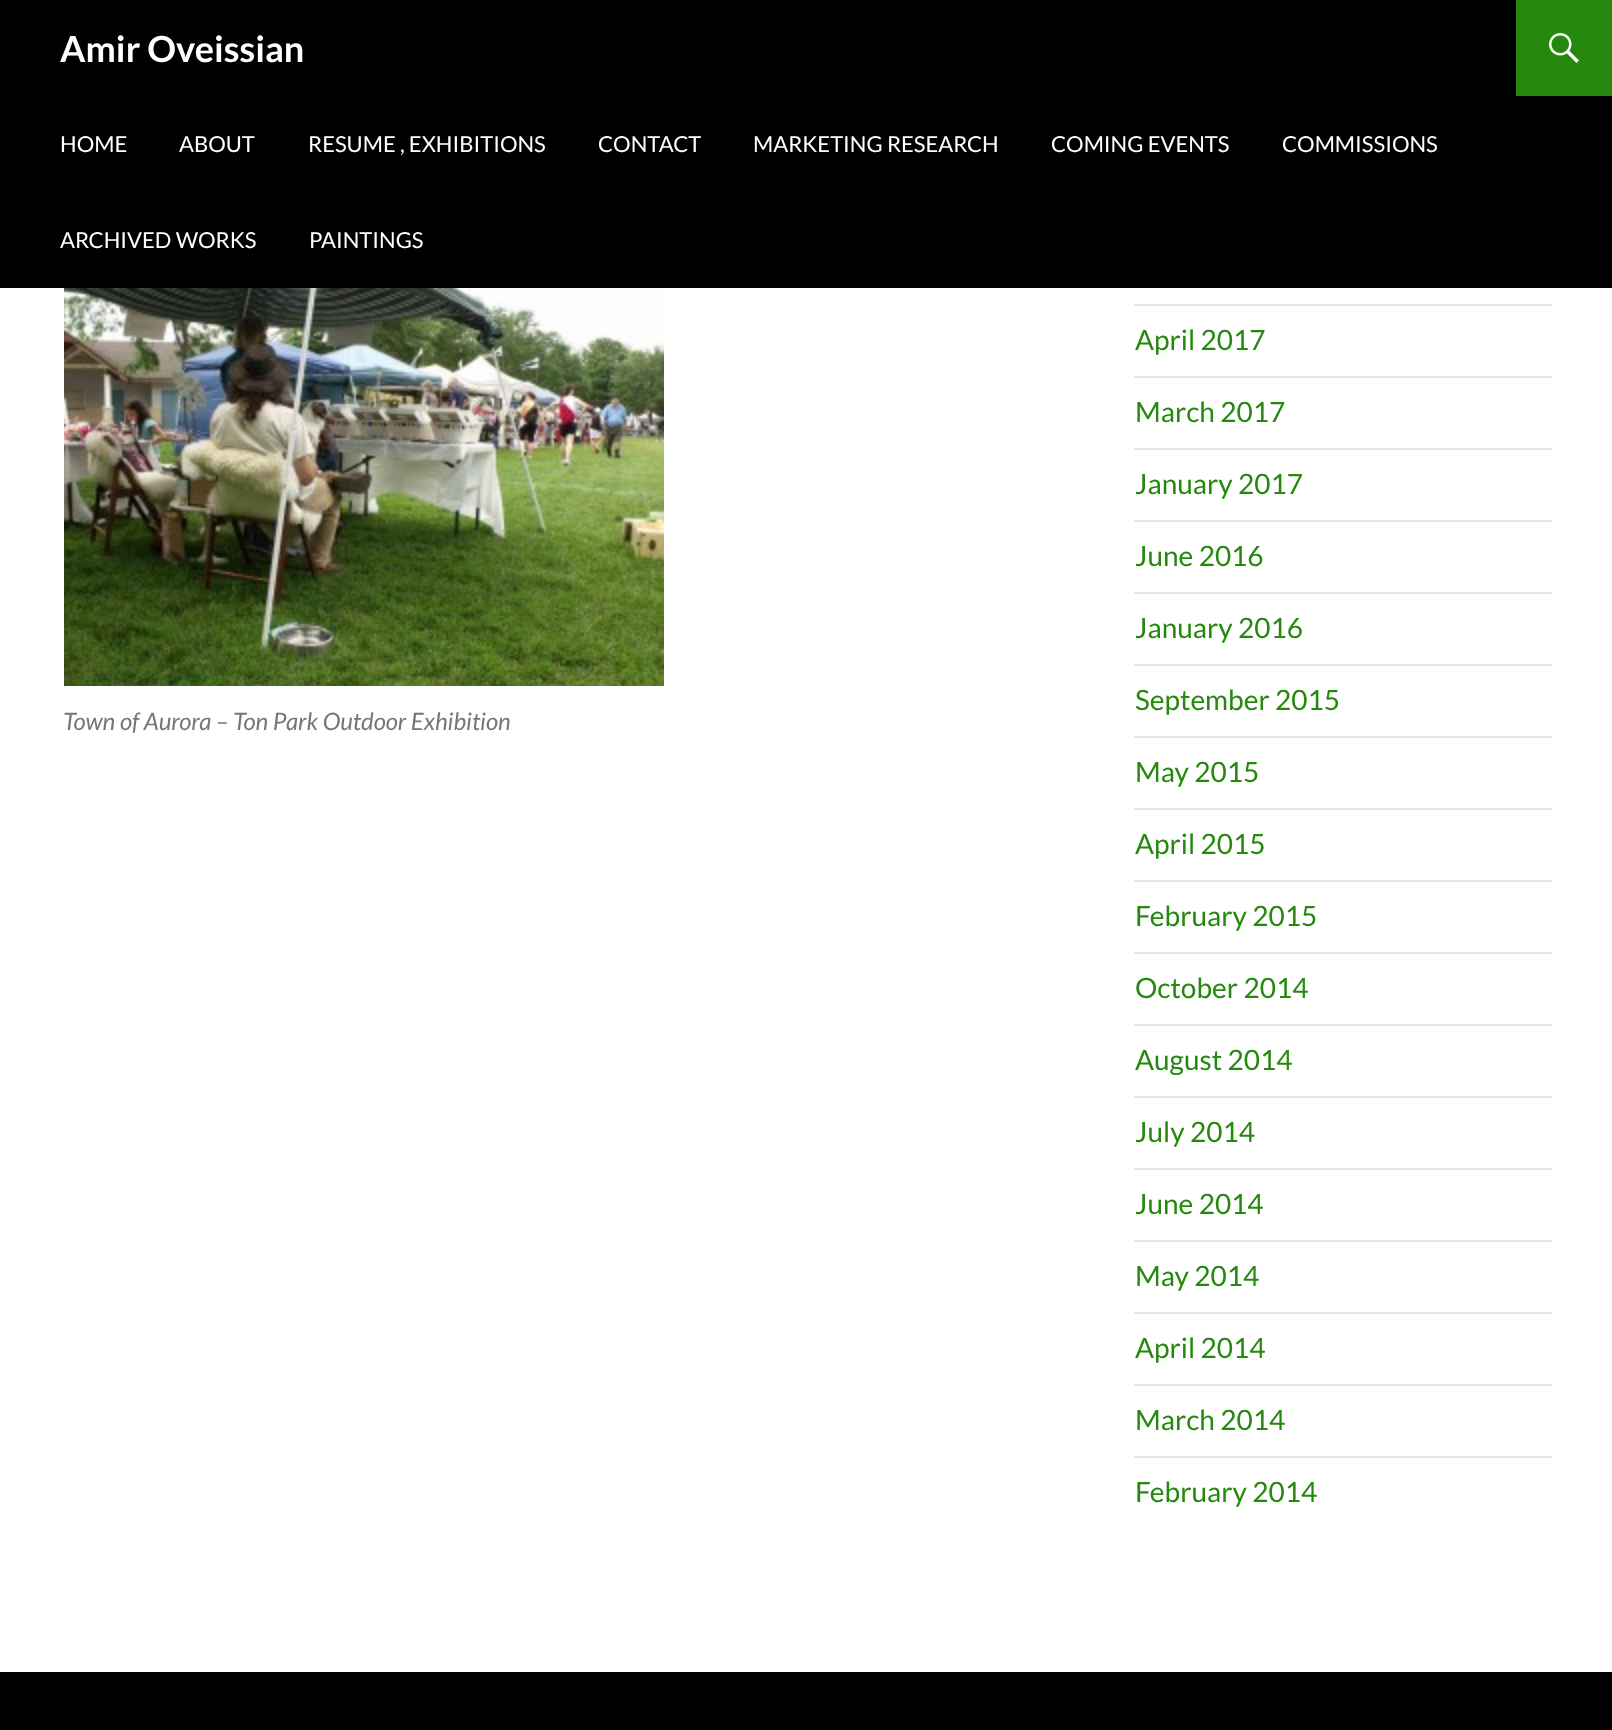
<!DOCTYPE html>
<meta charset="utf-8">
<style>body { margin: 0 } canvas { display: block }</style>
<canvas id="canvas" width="1612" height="1730"></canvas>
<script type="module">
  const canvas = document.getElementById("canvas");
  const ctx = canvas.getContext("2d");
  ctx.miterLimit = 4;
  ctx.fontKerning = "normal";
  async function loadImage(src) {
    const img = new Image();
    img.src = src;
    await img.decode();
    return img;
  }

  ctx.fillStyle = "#ffffff";
  ctx.fillRect(0, 0, 1612, 1730);
  ctx.fillStyle = "#000000";
  ctx.fillRect(0, 0, 1612, 288);
  ctx.font = "bold 36px Lato";
  ctx.fillStyle = "#ffffff";
  ctx.fillText("Amir Oveissian", 60, 62);
  ctx.fillStyle = "#24890d";
  ctx.fillRect(1516, 0, 96, 96);
  ctx.drawImage(await loadImage("img1.png"), 1549, 33, 30, 30);
  ctx.font = "22px Lato";
  ctx.fillStyle = "#ffffff";
  ctx.fillText("HOME", 60, 152);
  ctx.fillText("ABOUT", 179, 152);
  ctx.fillText("RESUME , EXHIBITIONS", 308, 152);
  ctx.fillText("CONTACT", 598, 152);
  ctx.fillText("MARKETING RESEARCH", 753, 152);
  ctx.fillText("COMING EVENTS", 1051, 152);
  ctx.fillText("COMMISSIONS", 1282, 152);
  ctx.fillText("ARCHIVED WORKS", 60, 248);
  ctx.fillText("PAINTINGS", 309, 248);
  ctx.drawImage(await loadImage("img2.png"), 64, 288, 600, 398);
  ctx.font = "italic 24px Lato";
  ctx.fillStyle = "#767676";
  ctx.fillText("Town of Aurora – Ton Park Outdoor Exhibition", 63, 730);
  ctx.fillStyle = "#e6e6e6";
  ctx.fillRect(1134, 304, 418, 2);
  ctx.font = "28px Lato";
  ctx.fillStyle = "#24890d";
  ctx.fillText("April 2017", 1135, 350);
  ctx.fillStyle = "#e6e6e6";
  ctx.fillRect(1134, 376, 418, 2);
  ctx.fillStyle = "#24890d";
  ctx.fillText("March 2017", 1135, 422);
  ctx.fillStyle = "#e6e6e6";
  ctx.fillRect(1134, 448, 418, 2);
  ctx.fillStyle = "#24890d";
  ctx.fillText("January 2017", 1135, 494);
  ctx.fillStyle = "#e6e6e6";
  ctx.fillRect(1134, 520, 418, 2);
  ctx.fillStyle = "#24890d";
  ctx.fillText("June 2016", 1135, 566);
  ctx.fillStyle = "#e6e6e6";
  ctx.fillRect(1134, 592, 418, 2);
  ctx.fillStyle = "#24890d";
  ctx.fillText("January 2016", 1135, 638);
  ctx.fillStyle = "#e6e6e6";
  ctx.fillRect(1134, 664, 418, 2);
  ctx.fillStyle = "#24890d";
  ctx.fillText("September 2015", 1135, 710);
  ctx.fillStyle = "#e6e6e6";
  ctx.fillRect(1134, 736, 418, 2);
  ctx.fillStyle = "#24890d";
  ctx.fillText("May 2015", 1135, 782);
  ctx.fillStyle = "#e6e6e6";
  ctx.fillRect(1134, 808, 418, 2);
  ctx.fillStyle = "#24890d";
  ctx.fillText("April 2015", 1135, 854);
  ctx.fillStyle = "#e6e6e6";
  ctx.fillRect(1134, 880, 418, 2);
  ctx.fillStyle = "#24890d";
  ctx.fillText("February 2015", 1135, 926);
  ctx.fillStyle = "#e6e6e6";
  ctx.fillRect(1134, 952, 418, 2);
  ctx.fillStyle = "#24890d";
  ctx.fillText("October 2014", 1135, 998);
  ctx.fillStyle = "#e6e6e6";
  ctx.fillRect(1134, 1024, 418, 2);
  ctx.fillStyle = "#24890d";
  ctx.fillText("August 2014", 1135, 1070);
  ctx.fillStyle = "#e6e6e6";
  ctx.fillRect(1134, 1096, 418, 2);
  ctx.fillStyle = "#24890d";
  ctx.fillText("July 2014", 1135, 1142);
  ctx.fillStyle = "#e6e6e6";
  ctx.fillRect(1134, 1168, 418, 2);
  ctx.fillStyle = "#24890d";
  ctx.fillText("June 2014", 1135, 1214);
  ctx.fillStyle = "#e6e6e6";
  ctx.fillRect(1134, 1240, 418, 2);
  ctx.fillStyle = "#24890d";
  ctx.fillText("May 2014", 1135, 1286);
  ctx.fillStyle = "#e6e6e6";
  ctx.fillRect(1134, 1312, 418, 2);
  ctx.fillStyle = "#24890d";
  ctx.fillText("April 2014", 1135, 1358);
  ctx.fillStyle = "#e6e6e6";
  ctx.fillRect(1134, 1384, 418, 2);
  ctx.fillStyle = "#24890d";
  ctx.fillText("March 2014", 1135, 1430);
  ctx.fillStyle = "#e6e6e6";
  ctx.fillRect(1134, 1456, 418, 2);
  ctx.fillStyle = "#24890d";
  ctx.fillText("February 2014", 1135, 1502);
  ctx.fillStyle = "#000000";
  ctx.fillRect(0, 1672, 1612, 58);
</script>
